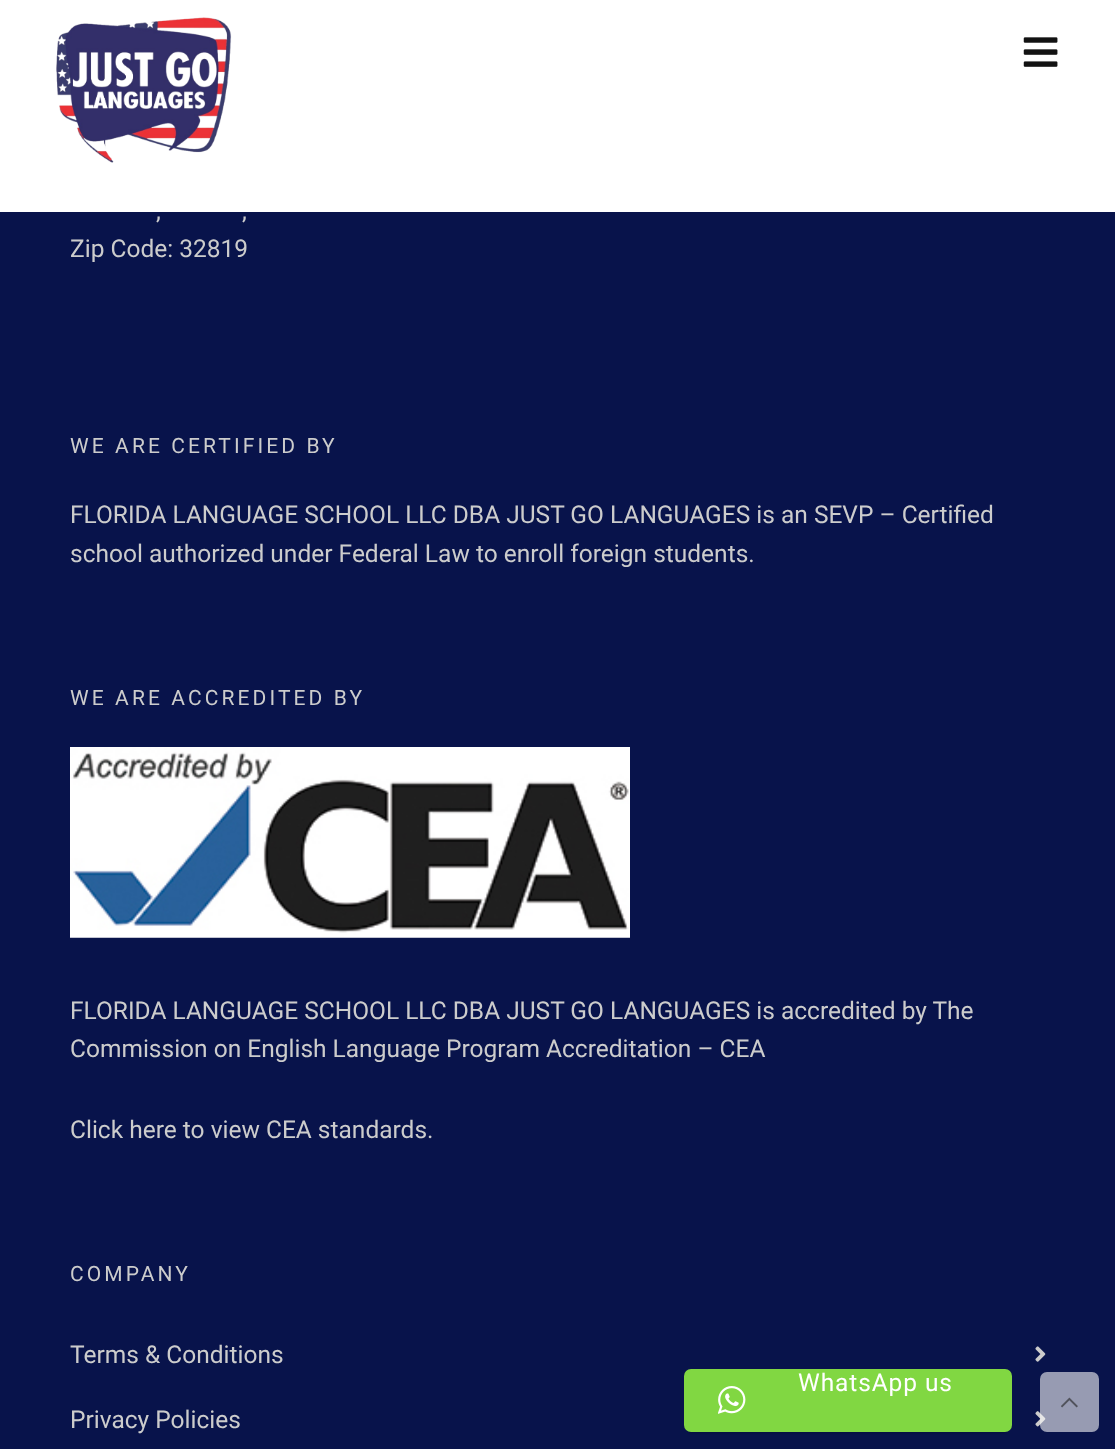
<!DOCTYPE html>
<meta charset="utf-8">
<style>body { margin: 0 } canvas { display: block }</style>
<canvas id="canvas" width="1115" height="1449"></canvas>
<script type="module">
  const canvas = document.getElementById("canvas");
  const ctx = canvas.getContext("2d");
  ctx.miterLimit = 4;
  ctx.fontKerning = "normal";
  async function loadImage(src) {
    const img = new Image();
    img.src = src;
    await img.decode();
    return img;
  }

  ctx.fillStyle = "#08134b";
  ctx.fillRect(0, 0, 1115, 1449);
  ctx.fillStyle = "#ffffff";
  ctx.fillRect(0, 0, 1115, 212);
  ctx.drawImage(await loadImage("img1.png"), 56, 17, 176, 146);
  ctx.drawImage(await loadImage("img2.png"), 1023, 37, 35, 30);
  ctx.font = "24.5px Roboto";
  ctx.fillStyle = "#cccccc";
  ctx.fillText(",", 156, 219);
  ctx.fillText(",", 242, 219);
  ctx.fillText("Zip Code: 32819", 70, 257);
  ctx.letterSpacing = "3.1px";
  ctx.font = "21px Roboto";
  ctx.fillText("WE ARE CERTIFIED BY", 70, 453);
  ctx.letterSpacing = "0px";
  ctx.font = "24.5px Roboto";
  ctx.fillText("FLORIDA LANGUAGE SCHOOL LLC DBA JUST GO LANGUAGES is an SEVP – Certified", 70, 523);
  ctx.fillText("school authorized under Federal Law to enroll foreign students.", 70, 562);
  ctx.letterSpacing = "3.1px";
  ctx.font = "21px Roboto";
  ctx.fillText("WE ARE ACCREDITED BY", 70, 705);
  ctx.drawImage(await loadImage("img3.png"), 70, 747, 560, 191);
  ctx.letterSpacing = "0px";
  ctx.font = "24.5px Roboto";
  ctx.fillText("FLORIDA LANGUAGE SCHOOL LLC DBA JUST GO LANGUAGES is accredited by The", 70, 1019);
  ctx.fillText("Commission on English Language Program Accreditation – CEA", 70, 1057);
  ctx.fillText("Click here to view CEA standards.", 70, 1138);
  ctx.letterSpacing = "3.1px";
  ctx.font = "21px Roboto";
  ctx.fillText("COMPANY", 70, 1281);
  ctx.letterSpacing = "0px";
  ctx.font = "24.5px Roboto";
  ctx.fillText("Terms & Conditions", 70, 1363);
  ctx.drawImage(await loadImage("img4.png"), 1035, 1346, 11, 16);
  ctx.fillText("Privacy Policies", 70, 1428);
  ctx.drawImage(await loadImage("img5.png"), 1035, 1411, 11, 16);
  ctx.fillStyle = "rgba(0, 0, 0, 0.2)";
  ctx.filter = "blur(1px)";
  ctx.beginPath();
  ctx.roundRect(688, 1377, 320, 56, 4);
  ctx.fill();
  ctx.filter = "none";
  ctx.fillStyle = "#81d742";
  ctx.beginPath();
  ctx.roundRect(684, 1369, 328, 63, 7);
  ctx.fill();
  ctx.drawImage(await loadImage("img6.png"), 718, 1386, 28, 28);
  ctx.letterSpacing = "0.9px";
  ctx.fillStyle = "#ffffff";
  ctx.fillText("WhatsApp us", 798, 1391);
  ctx.fillStyle = "rgba(247, 247, 247, 0.6)";
  ctx.beginPath();
  ctx.roundRect(1040, 1372, 59, 60, 7);
  ctx.fill();
  ctx.drawImage(await loadImage("img7.png"), 1061, 1397, 17, 11);
</script>
